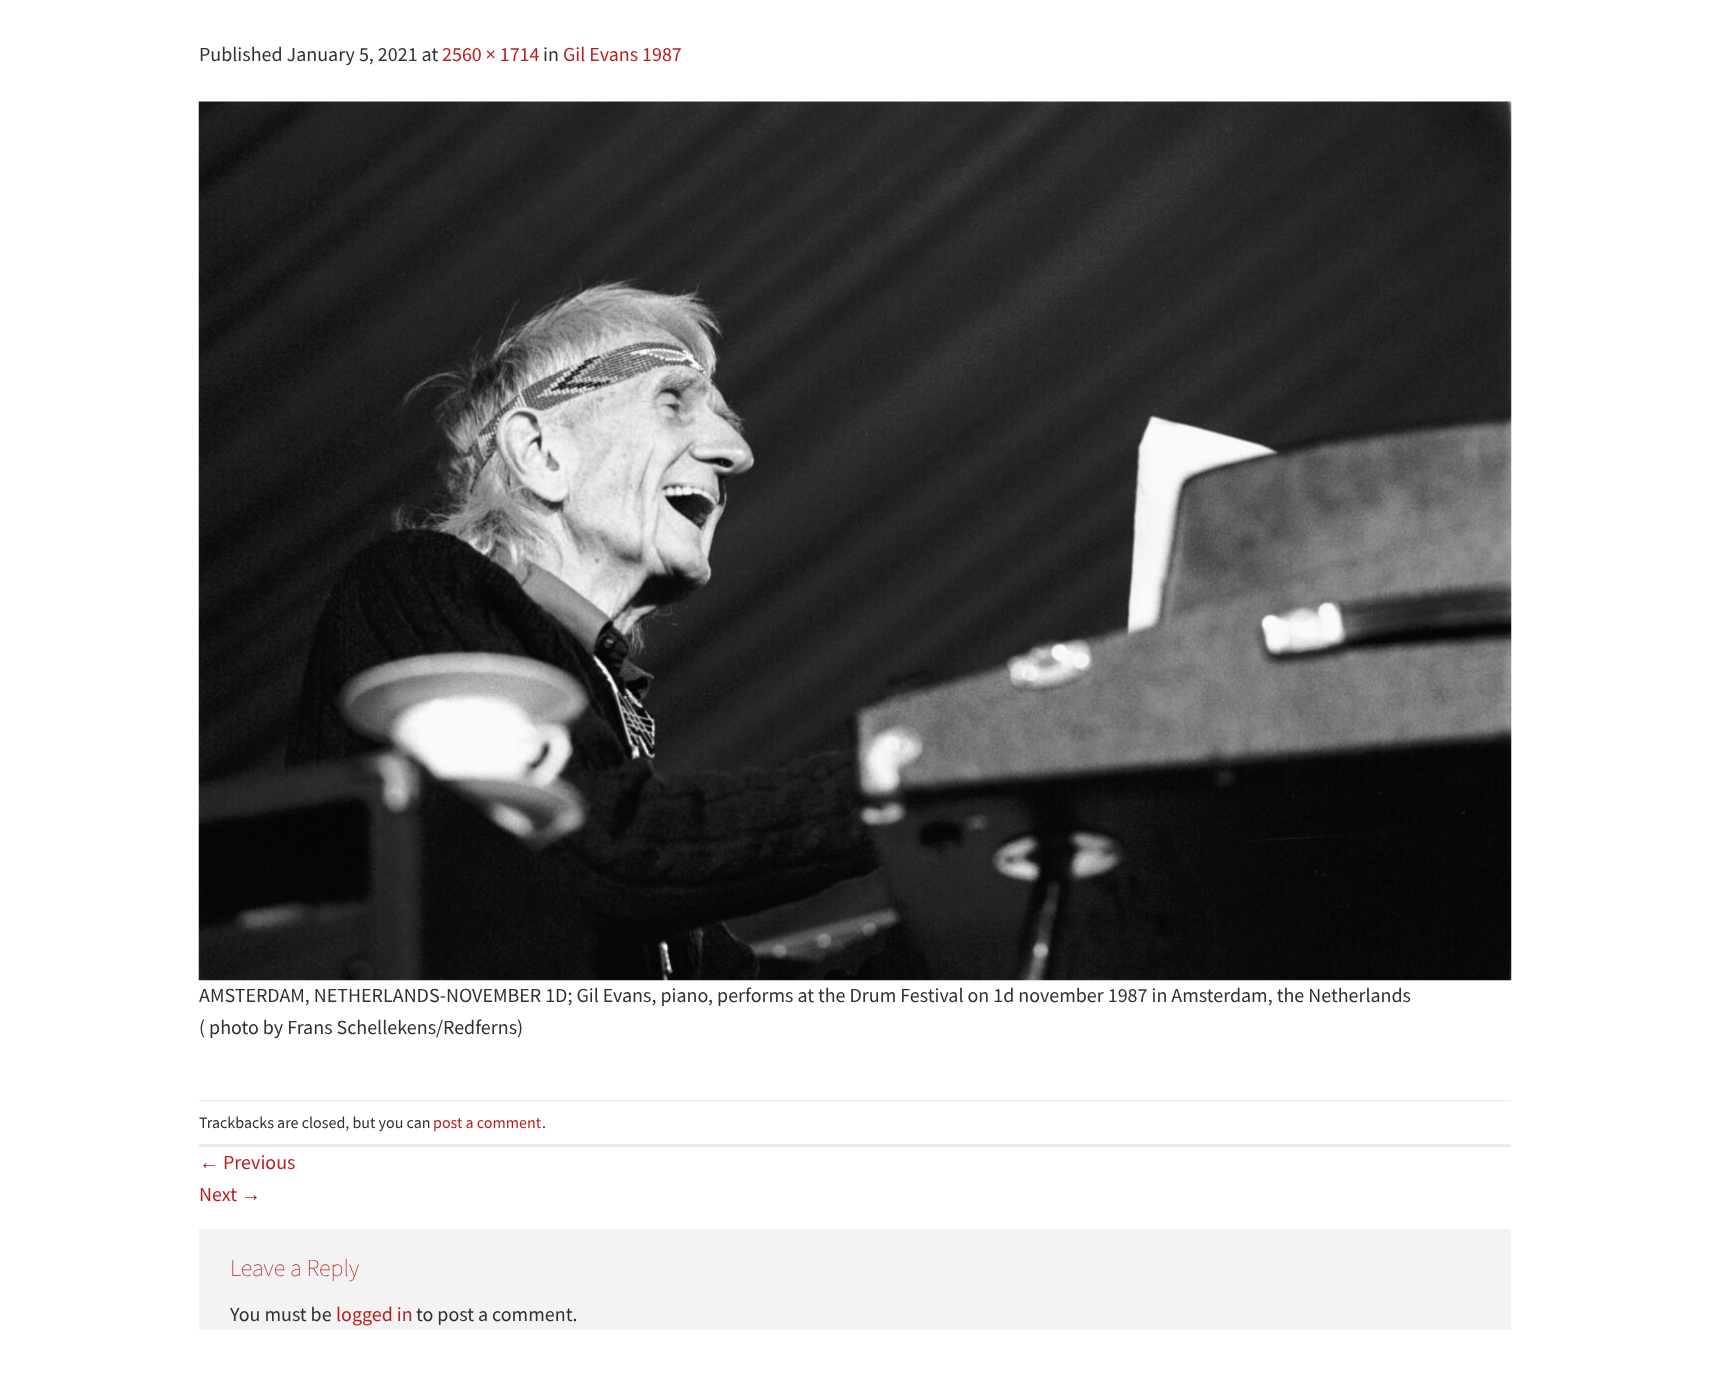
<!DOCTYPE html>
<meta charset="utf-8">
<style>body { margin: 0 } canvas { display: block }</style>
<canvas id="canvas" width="1710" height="1397"></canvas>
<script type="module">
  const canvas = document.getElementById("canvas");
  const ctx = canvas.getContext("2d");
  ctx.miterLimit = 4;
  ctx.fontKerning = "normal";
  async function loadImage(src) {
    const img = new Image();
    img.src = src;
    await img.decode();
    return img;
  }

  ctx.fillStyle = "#ffffff";
  ctx.fillRect(0, 0, 1710, 1397);
  ctx.font = "20px Source Sans Pro";
  ctx.fillStyle = "#303030";
  ctx.fillText("Published January 5, 2021 at", 199, 61);
  ctx.fillStyle = "#b91e1e";
  ctx.fillText("2560 × 1714", 442, 61);
  ctx.fillStyle = "#303030";
  ctx.fillText("in", 543, 61);
  ctx.fillStyle = "#b91e1e";
  ctx.fillText("Gil Evans 1987", 563, 61);
  ctx.drawImage(await loadImage("img1.png"), 198, 101, 1314, 880);
  ctx.fillStyle = "#303030";
  ctx.fillText("AMSTERDAM, NETHERLANDS-NOVEMBER 1D; Gil Evans, piano, performs at the Drum Festival on 1d november 1987 in Amsterdam, the Netherlands", 199, 1002);
  ctx.fillText("( photo by Frans Schellekens/Redferns)", 199, 1034);
  ctx.fillStyle = "#ececec";
  ctx.fillRect(199, 1100, 1312, 1);
  ctx.fillRect(199, 1144, 1312, 3);
  ctx.font = "16px Source Sans Pro";
  ctx.fillStyle = "#303030";
  ctx.fillText("Trackbacks are closed, but you can", 199, 1128);
  ctx.fillStyle = "#b91e1e";
  ctx.fillText("post a comment", 433, 1128);
  ctx.fillStyle = "#303030";
  ctx.fillText(".", 542, 1128);
  ctx.font = "20px Liberation Sans";
  ctx.fillStyle = "#b91e1e";
  ctx.fillText("←", 199, 1169);
  ctx.font = "20px Source Sans Pro";
  ctx.fillText("Previous", 223, 1169);
  ctx.fillText("Next", 199, 1201);
  ctx.font = "20px Liberation Sans";
  ctx.fillText("→", 241, 1201);
  ctx.fillStyle = "#f3f3f3";
  ctx.fillRect(199, 1229, 1312, 101);
  ctx.font = "200 24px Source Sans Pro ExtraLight";
  ctx.fillStyle = "#b91e1e";
  ctx.fillText("Leave a Reply", 230, 1276);
  ctx.font = "20px Source Sans Pro";
  ctx.fillStyle = "#303030";
  ctx.fillText("You must be", 230, 1321);
  ctx.fillStyle = "#b91e1e";
  ctx.fillText("logged in", 336, 1321);
  ctx.fillStyle = "#303030";
  ctx.fillText("to post a comment.", 416, 1321);
</script>
